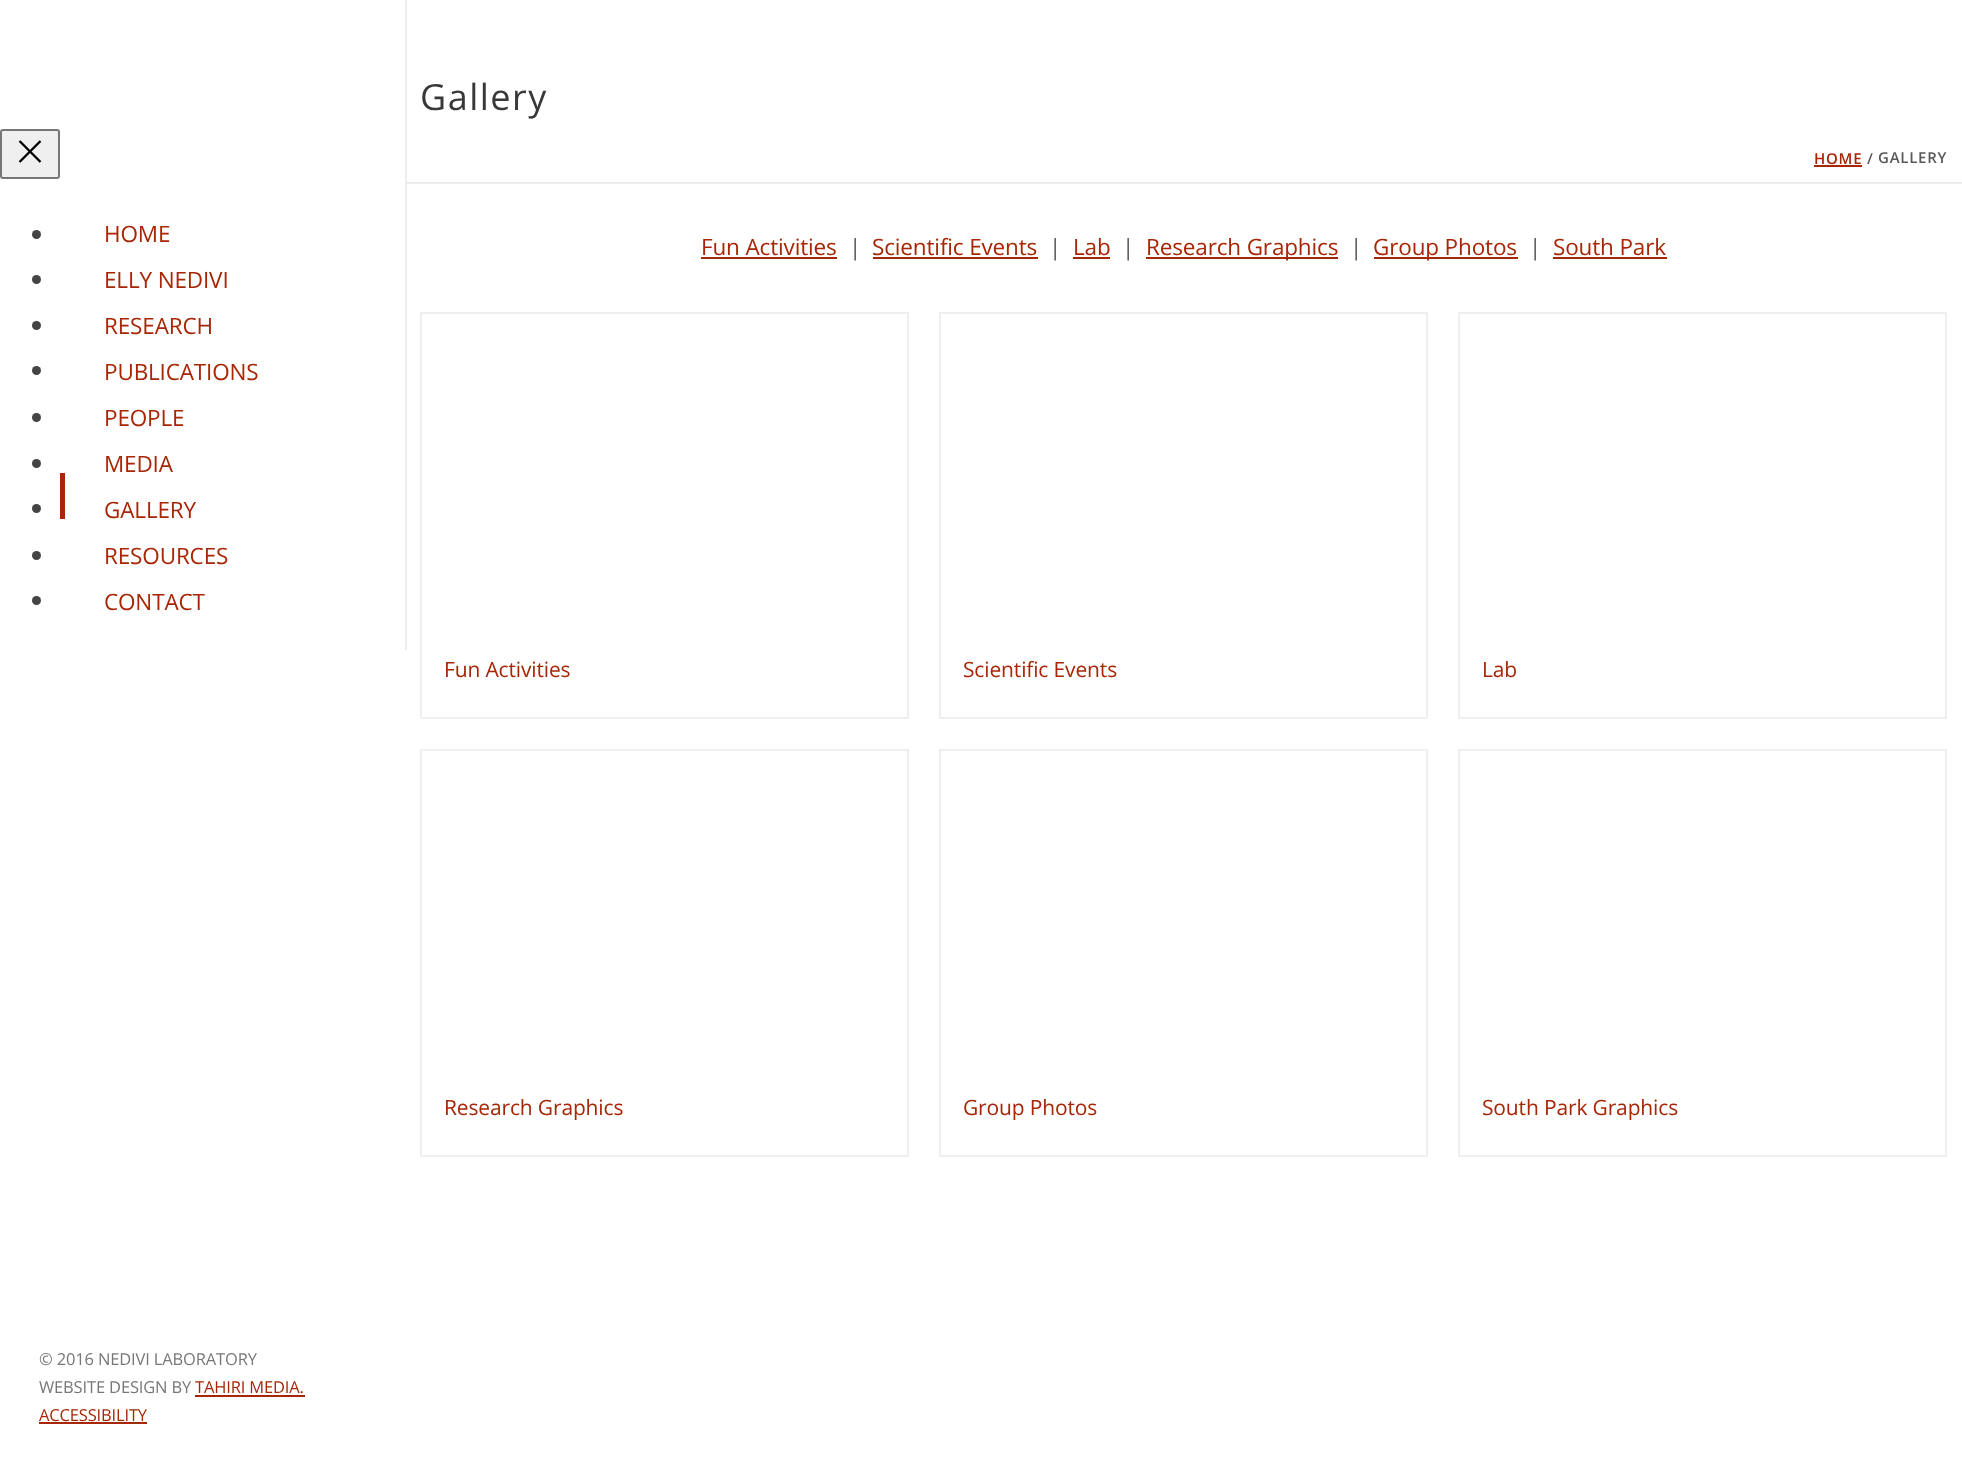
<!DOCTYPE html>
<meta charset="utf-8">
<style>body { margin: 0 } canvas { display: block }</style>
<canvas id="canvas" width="1962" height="1459"></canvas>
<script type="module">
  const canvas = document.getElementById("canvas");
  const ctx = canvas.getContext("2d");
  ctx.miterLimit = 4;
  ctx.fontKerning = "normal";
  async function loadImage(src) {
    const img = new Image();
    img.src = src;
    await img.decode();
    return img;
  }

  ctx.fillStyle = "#ffffff";
  ctx.fillRect(0, 0, 1962, 1459);
  ctx.fillStyle = "#ededed";
  ctx.fillRect(405, 0, 2, 650);
  ctx.fillStyle = "#efefef";
  ctx.beginPath();
  ctx.roundRect(1, 130, 58, 48, 2);
  ctx.fill();
  ctx.strokeStyle = "#767676";
  ctx.lineWidth = 2;
  ctx.stroke();
  ctx.drawImage(await loadImage("img1.png"), 18, 140, 24, 23);
  ctx.fillStyle = "#444444";
  ctx.beginPath();
  ctx.arc(36.5, 234.5, 4.5, 0, Math.PI * 2);
  ctx.fill();
  ctx.letterSpacing = "-0.15px";
  ctx.font = "22.5px Open Sans";
  ctx.fillStyle = "#a72606";
  ctx.fillText("HOME", 104, 242);
  ctx.fillStyle = "#444444";
  ctx.beginPath();
  ctx.arc(36.5, 279.5, 4.5, 0, Math.PI * 2);
  ctx.fill();
  ctx.fillStyle = "#a72606";
  ctx.fillText("ELLY NEDIVI", 104, 288);
  ctx.fillStyle = "#444444";
  ctx.beginPath();
  ctx.arc(36.5, 325.5, 4.5, 0, Math.PI * 2);
  ctx.fill();
  ctx.fillStyle = "#a72606";
  ctx.fillText("RESEARCH", 104, 334);
  ctx.fillStyle = "#444444";
  ctx.beginPath();
  ctx.arc(36.5, 370.5, 4.5, 0, Math.PI * 2);
  ctx.fill();
  ctx.fillStyle = "#a72606";
  ctx.fillText("PUBLICATIONS", 104, 380);
  ctx.fillStyle = "#444444";
  ctx.beginPath();
  ctx.arc(36.5, 417.5, 4.5, 0, Math.PI * 2);
  ctx.fill();
  ctx.fillStyle = "#a72606";
  ctx.fillText("PEOPLE", 104, 426);
  ctx.fillStyle = "#444444";
  ctx.beginPath();
  ctx.arc(36.5, 463.5, 4.5, 0, Math.PI * 2);
  ctx.fill();
  ctx.fillStyle = "#a72606";
  ctx.fillText("MEDIA", 104, 472);
  ctx.fillStyle = "#444444";
  ctx.beginPath();
  ctx.arc(36.5, 508.5, 4.5, 0, Math.PI * 2);
  ctx.fill();
  ctx.fillStyle = "#a72606";
  ctx.fillText("GALLERY", 104, 518);
  ctx.fillRect(60, 473, 5, 46);
  ctx.fillStyle = "#444444";
  ctx.beginPath();
  ctx.arc(36.5, 555.5, 4.5, 0, Math.PI * 2);
  ctx.fill();
  ctx.fillStyle = "#a72606";
  ctx.fillText("RESOURCES", 104, 564);
  ctx.fillStyle = "#444444";
  ctx.beginPath();
  ctx.arc(36.5, 600.5, 4.5, 0, Math.PI * 2);
  ctx.fill();
  ctx.fillStyle = "#a72606";
  ctx.fillText("CONTACT", 104, 610);
  ctx.font = "16.5px Open Sans";
  ctx.fillStyle = "#777777";
  ctx.fillText("© 2016 NEDIVI LABORATORY", 39, 1365);
  ctx.fillText("WEBSITE DESIGN BY", 39, 1393);
  ctx.fillStyle = "#a72606";
  ctx.fillText("TAHIRI MEDIA.", 195, 1393);
  ctx.fillRect(195, 1395, 110, 2);
  ctx.fillText("ACCESSIBILITY", 39, 1421);
  ctx.fillRect(39, 1422, 108, 2);
  ctx.fillStyle = "#ededed";
  ctx.fillRect(405, 182, 1557, 2);
  ctx.letterSpacing = "1.5px";
  ctx.font = "36px Open Sans";
  ctx.fillStyle = "#393836";
  ctx.fillText("Gallery", 420, 110);
  ctx.letterSpacing = "0.75px";
  ctx.font = "600 15px Open Sans";
  ctx.fillStyle = "#a72606";
  ctx.fillText("HOME", 1814, 164);
  ctx.fillRect(1814, 165, 48, 2);
  ctx.fillStyle = "#595959";
  ctx.fillText("/", 1867, 164);
  ctx.fillText("GALLERY", 1878, 163);
  ctx.letterSpacing = "-0.15px";
  ctx.font = "22.5px Open Sans";
  ctx.fillStyle = "#a72606";
  ctx.fillText("Fun Activities", 701, 255);
  ctx.fillRect(701, 257, 136, 2);
  ctx.fillStyle = "#595959";
  ctx.fillText("|", 849, 255);
  ctx.fillStyle = "#a72606";
  ctx.fillText("Scientific Events", 872, 255);
  ctx.fillRect(873, 257, 165, 2);
  ctx.fillStyle = "#595959";
  ctx.fillText("|", 1049, 255);
  ctx.fillStyle = "#a72606";
  ctx.fillText("Lab", 1073, 255);
  ctx.fillRect(1073, 257, 37, 2);
  ctx.fillStyle = "#595959";
  ctx.fillText("|", 1122, 255);
  ctx.fillStyle = "#a72606";
  ctx.fillRect(1146, 257, 192, 2);
  ctx.fillText("Research Graphics", 1146, 255);
  ctx.fillStyle = "#595959";
  ctx.fillText("|", 1350, 255);
  ctx.fillStyle = "#a72606";
  ctx.fillRect(1374, 257, 144, 2);
  ctx.fillText("Group Photos", 1373, 255);
  ctx.fillStyle = "#595959";
  ctx.fillText("|", 1529, 255);
  ctx.fillStyle = "#a72606";
  ctx.fillText("South Park", 1553, 255);
  ctx.fillRect(1553, 257, 114, 2);
  ctx.strokeStyle = "#efefef";
  ctx.strokeRect(421, 313, 487, 405);
  ctx.font = "21px Open Sans";
  ctx.fillText("Fun Activities", 444, 677);
  ctx.strokeRect(940, 313, 487, 405);
  ctx.fillText("Scientific Events", 963, 677);
  ctx.strokeRect(1459, 313, 487, 405);
  ctx.fillText("Lab", 1482, 677);
  ctx.strokeRect(421, 750, 487, 406);
  ctx.fillText("Research Graphics", 444, 1115);
  ctx.strokeRect(940, 750, 487, 406);
  ctx.fillText("Group Photos", 963, 1115);
  ctx.strokeRect(1459, 750, 487, 406);
  ctx.fillText("South Park Graphics", 1482, 1115);
</script>
